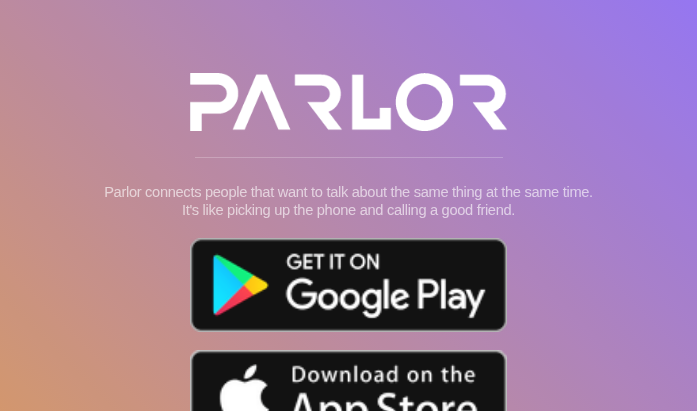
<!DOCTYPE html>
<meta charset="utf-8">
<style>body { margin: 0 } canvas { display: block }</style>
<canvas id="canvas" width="697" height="411"></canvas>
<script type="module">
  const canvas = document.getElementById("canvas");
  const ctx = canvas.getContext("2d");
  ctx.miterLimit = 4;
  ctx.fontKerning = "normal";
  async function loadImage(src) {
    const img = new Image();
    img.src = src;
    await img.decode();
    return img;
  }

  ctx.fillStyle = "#ffffff";
  ctx.fillRect(0, 0, 697, 411);
  ctx.drawImage(await loadImage("img1.png"), 0, 0, 697, 411);
</script>
